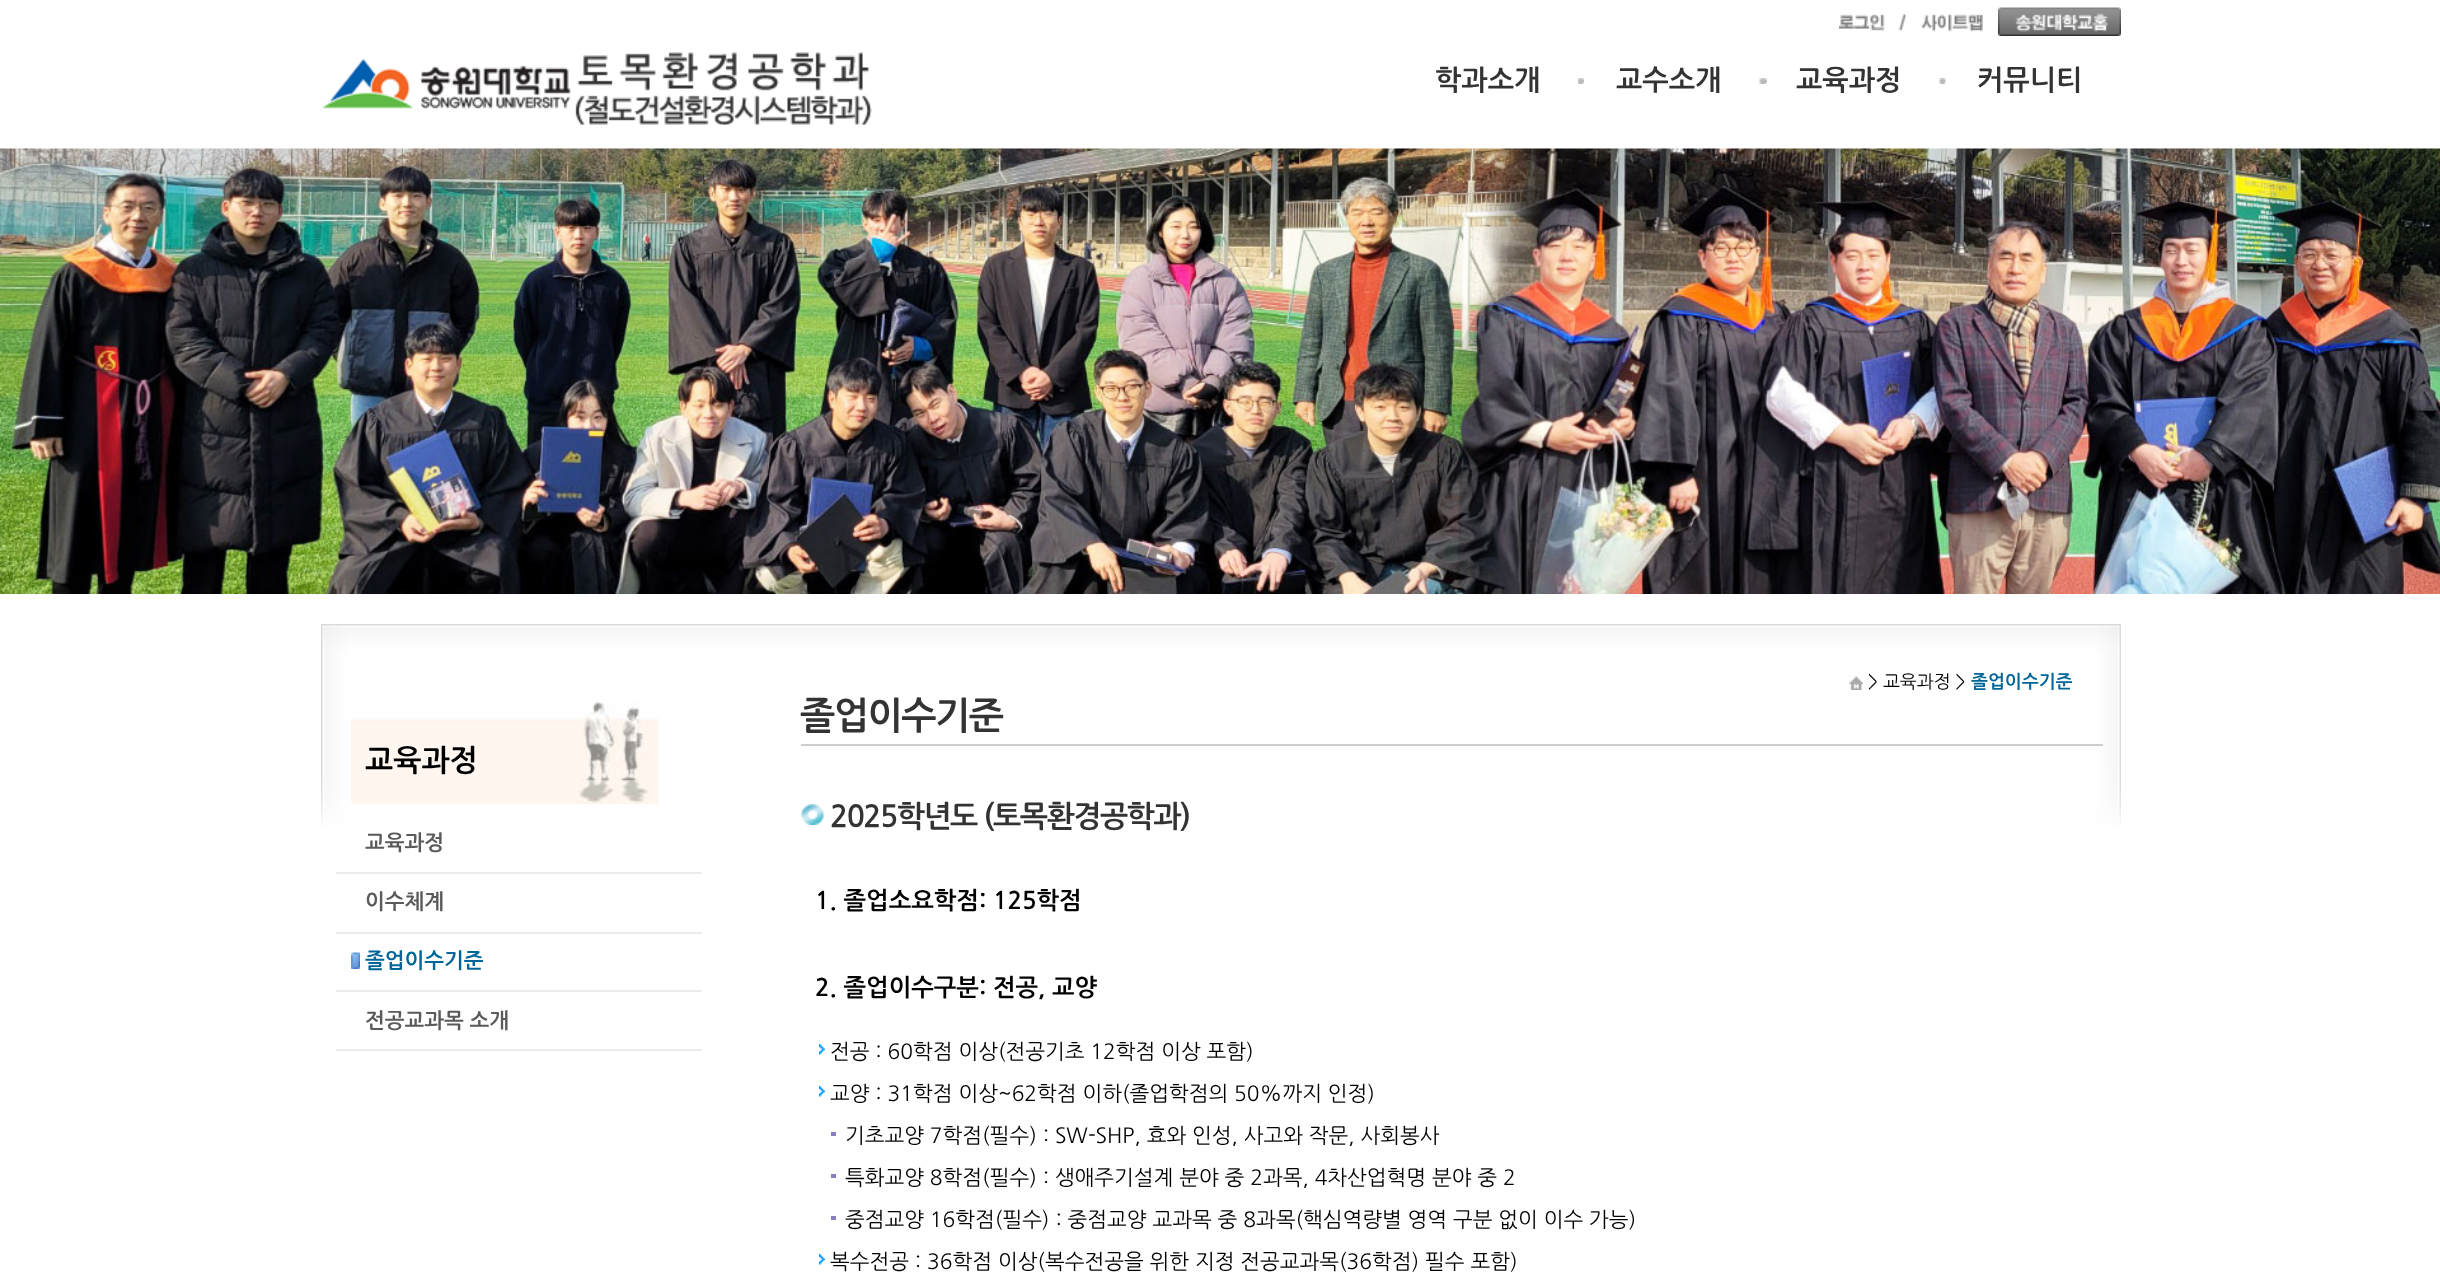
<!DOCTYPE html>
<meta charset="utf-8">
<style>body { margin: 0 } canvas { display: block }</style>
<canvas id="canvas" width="2440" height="1278"></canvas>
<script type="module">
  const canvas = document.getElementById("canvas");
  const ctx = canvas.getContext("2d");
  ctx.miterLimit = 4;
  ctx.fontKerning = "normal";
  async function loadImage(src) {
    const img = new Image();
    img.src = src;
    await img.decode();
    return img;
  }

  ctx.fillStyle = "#ffffff";
  ctx.fillRect(0, 0, 2440, 1278);
  ctx.drawImage(await loadImage("img1.png"), 1839, 13, 68, 18);
  ctx.drawImage(await loadImage("img2.png"), 1906, 14, 77, 18);
  ctx.drawImage(await loadImage("img3.png"), 1998, 7, 123, 29);
  ctx.drawImage(await loadImage("img4.png"), 322, 52, 550, 73);
  ctx.font = "bold 28px NanumGothic";
  ctx.fillStyle = "#333333";
  ctx.fillText("학과소개", 1435, 90);
  ctx.drawImage(await loadImage("img5.png"), 1578, 78, 6, 6);
  ctx.fillText("교수소개", 1616, 90);
  ctx.drawImage(await loadImage("img6.png"), 1759, 78, 8, 6);
  ctx.fillText("교육과정", 1796, 90);
  ctx.drawImage(await loadImage("img7.png"), 1939, 78, 7, 6);
  ctx.fillText("커뮤니티", 1977, 90);
  ctx.drawImage(await loadImage("img8.png"), 0, 148, 2440, 446);
  ctx.drawImage(await loadImage("img9.png"), 321, 624, 1800, 202);
  ctx.drawImage(await loadImage("img10.png"), 351, 701, 308, 103);
  ctx.font = "bold 30px NanumGothic";
  ctx.fillStyle = "#000000";
  ctx.fillText("교육과정", 365, 771);
  ctx.fillStyle = "#ebebeb";
  ctx.fillRect(336, 872, 366, 2);
  ctx.font = "bold 21px NanumGothic";
  ctx.fillStyle = "#5a5a5a";
  ctx.fillText("교육과정", 365, 850);
  ctx.fillStyle = "#ebebeb";
  ctx.fillRect(336, 932, 366, 2);
  ctx.fillStyle = "#5a5a5a";
  ctx.fillText("이수체계", 365, 909);
  ctx.fillStyle = "#ebebeb";
  ctx.fillRect(336, 990, 366, 2);
  ctx.drawImage(await loadImage("img11.png"), 351, 952, 9, 17);
  ctx.fillStyle = "#006699";
  ctx.fillText("졸업이수기준", 365, 968);
  ctx.fillStyle = "#ebebeb";
  ctx.fillRect(336, 1049, 366, 2);
  ctx.fillStyle = "#5a5a5a";
  ctx.fillText("전공교과목 소개", 365, 1028);
  ctx.drawImage(await loadImage("img12.png"), 1849, 676, 14, 14);
  ctx.font = "18px NanumGothic";
  ctx.fillStyle = "#000000";
  ctx.fillText("> 교육과정 >", 1868, 688);
  ctx.font = "bold 18px NanumGothic";
  ctx.fillStyle = "#006699";
  ctx.fillText("졸업이수기준", 1971, 688);
  ctx.fillStyle = "#cdcdcd";
  ctx.fillRect(801, 744, 1302, 2);
  ctx.letterSpacing = "-1.5px";
  ctx.font = "bold 37.5px NanumGothic";
  ctx.fillStyle = "#333333";
  ctx.fillText("졸업이수기준", 800, 729);
  ctx.drawImage(await loadImage("img13.png"), 801, 804, 23, 21);
  ctx.font = "bold 30px NanumGothic";
  ctx.fillText("2025학년도 (토목환경공학과)", 830, 827);
  ctx.letterSpacing = "0px";
  ctx.font = "bold 24px NanumGothic";
  ctx.fillStyle = "#000000";
  ctx.fillText("1. 졸업소요학점: 125학점", 815, 909);
  ctx.fillText("2. 졸업이수구분: 전공, 교양", 815, 996);
  ctx.drawImage(await loadImage("img14.png"), 819, 1044, 6, 11);
  ctx.font = "21px NanumGothic";
  ctx.fillText("전공 : 60학점 이상(전공기초 12학점 이상 포함)", 830, 1059);
  ctx.drawImage(await loadImage("img14.png"), 819, 1086, 6, 11);
  ctx.fillText("교양 : 31학점 이상~62학점 이하(졸업학점의 50%까지 인정)", 830, 1101);
  ctx.fillStyle = "#897dbf";
  ctx.fillRect(831, 1132, 5, 4);
  ctx.fillStyle = "#000000";
  ctx.fillText("기초교양 7학점(필수) : SW-SHP, 효와 인성, 사고와 작문, 사회봉사", 845, 1143);
  ctx.fillStyle = "#897dbf";
  ctx.fillRect(831, 1174, 5, 4);
  ctx.fillStyle = "#000000";
  ctx.fillText("특화교양 8학점(필수) : 생애주기설계 분야 중 2과목, 4차산업혁명 분야 중 2", 845, 1185);
  ctx.fillStyle = "#897dbf";
  ctx.fillRect(831, 1216, 5, 4);
  ctx.fillStyle = "#000000";
  ctx.fillText("중점교양 16학점(필수) : 중점교양 교과목 중 8과목(핵심역량별 영역 구분 없이 이수 가능)", 845, 1227);
  ctx.drawImage(await loadImage("img14.png"), 819, 1254, 6, 11);
  ctx.fillText("복수전공 : 36학점 이상(복수전공을 위한 지정 전공교과목(36학점) 필수 포함)", 830, 1269);
</script>
